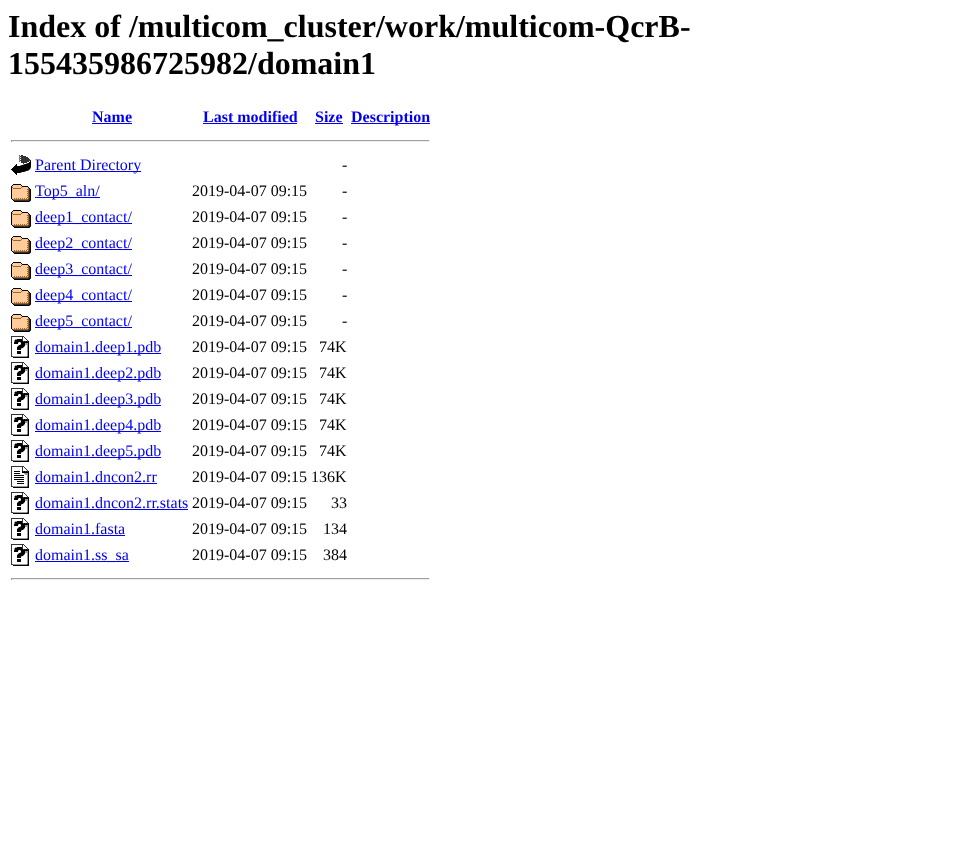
<!DOCTYPE html>
<meta charset="utf-8">
<style>body { margin: 0 } canvas { display: block }</style>
<canvas id="canvas" width="979" height="851"></canvas>
<script type="module">
  const canvas = document.getElementById("canvas");
  const ctx = canvas.getContext("2d");
  ctx.miterLimit = 4;
  ctx.fontKerning = "normal";
  async function loadImage(src) {
    const img = new Image();
    img.src = src;
    await img.decode();
    return img;
  }

  ctx.fillStyle = "#ffffff";
  ctx.fillRect(0, 0, 979, 851);
  ctx.font = "bold 32px Liberation Serif";
  ctx.fillStyle = "#000000";
  ctx.fillText("Index of /multicom_cluster/work/multicom-QcrB-", 8, 37);
  ctx.fillText("155435986725982/domain1", 8, 74);
  ctx.font = "bold 16px Liberation Serif";
  ctx.fillStyle = "#0000ee";
  ctx.fillText("Name", 92, 122);
  ctx.fillRect(92, 123, 40, 1);
  ctx.fillText("Last modified", 203, 122);
  ctx.fillRect(203, 123, 94, 1);
  ctx.fillText("Size", 315, 122);
  ctx.fillRect(315, 123, 28, 1);
  ctx.fillRect(351, 123, 79, 1);
  ctx.fillText("Description", 351, 122);
  ctx.fillStyle = "#9f9f9f";
  ctx.fillRect(11, 140, 419, 1);
  ctx.fillStyle = "#eeeeee";
  ctx.fillRect(429, 140, 1, 2);
  ctx.fillRect(11, 141, 419, 1);
  ctx.fillStyle = "#9f9f9f";
  ctx.fillRect(11, 140, 1, 2);
  ctx.drawImage(await loadImage("img1.png"), 11, 155, 20, 20);
  ctx.fillStyle = "#0000ee";
  ctx.fillRect(35, 171, 106, 1);
  ctx.font = "16px Liberation Serif";
  ctx.fillText("Parent Directory", 35, 170);
  ctx.fillStyle = "#000000";
  ctx.fillText("-", 342, 170);
  ctx.drawImage(await loadImage("img2.png"), 11, 184, 20, 18);
  ctx.fillStyle = "#0000ee";
  ctx.fillRect(35, 197, 65, 1);
  ctx.fillText("Top5_aln/", 35, 196);
  ctx.fillStyle = "#000000";
  ctx.fillText("2019-04-07 09:15", 192, 196);
  ctx.fillText("-", 342, 196);
  ctx.drawImage(await loadImage("img2.png"), 11, 210, 20, 18);
  ctx.fillStyle = "#0000ee";
  ctx.fillRect(35, 223, 97, 1);
  ctx.fillText("deep1_contact/", 35, 222);
  ctx.fillStyle = "#000000";
  ctx.fillText("2019-04-07 09:15", 192, 222);
  ctx.fillText("-", 342, 222);
  ctx.drawImage(await loadImage("img2.png"), 11, 236, 20, 18);
  ctx.fillStyle = "#0000ee";
  ctx.fillRect(35, 249, 97, 1);
  ctx.fillText("deep2_contact/", 35, 248);
  ctx.fillStyle = "#000000";
  ctx.fillText("2019-04-07 09:15", 192, 248);
  ctx.fillText("-", 342, 248);
  ctx.drawImage(await loadImage("img2.png"), 11, 262, 20, 18);
  ctx.fillStyle = "#0000ee";
  ctx.fillRect(35, 275, 97, 1);
  ctx.fillText("deep3_contact/", 35, 274);
  ctx.fillStyle = "#000000";
  ctx.fillText("2019-04-07 09:15", 192, 274);
  ctx.fillText("-", 342, 274);
  ctx.drawImage(await loadImage("img2.png"), 11, 288, 20, 18);
  ctx.fillStyle = "#0000ee";
  ctx.fillRect(35, 301, 97, 1);
  ctx.fillText("deep4_contact/", 35, 300);
  ctx.fillStyle = "#000000";
  ctx.fillText("2019-04-07 09:15", 192, 300);
  ctx.fillText("-", 342, 300);
  ctx.drawImage(await loadImage("img2.png"), 11, 314, 20, 18);
  ctx.fillStyle = "#0000ee";
  ctx.fillRect(35, 327, 97, 1);
  ctx.fillText("deep5_contact/", 35, 326);
  ctx.fillStyle = "#000000";
  ctx.fillText("2019-04-07 09:15", 192, 326);
  ctx.fillText("-", 342, 326);
  ctx.drawImage(await loadImage("img3.png"), 11, 336, 18, 22);
  ctx.fillStyle = "#0000ee";
  ctx.fillRect(35, 353, 126, 1);
  ctx.fillText("domain1.deep1.pdb", 35, 352);
  ctx.fillStyle = "#000000";
  ctx.fillText("2019-04-07 09:15", 192, 352);
  ctx.fillText("74K", 319, 352);
  ctx.drawImage(await loadImage("img3.png"), 11, 362, 18, 22);
  ctx.fillStyle = "#0000ee";
  ctx.fillRect(35, 379, 126, 1);
  ctx.fillText("domain1.deep2.pdb", 35, 378);
  ctx.fillStyle = "#000000";
  ctx.fillText("2019-04-07 09:15", 192, 378);
  ctx.fillText("74K", 319, 378);
  ctx.drawImage(await loadImage("img3.png"), 11, 388, 18, 22);
  ctx.fillStyle = "#0000ee";
  ctx.fillRect(35, 405, 126, 1);
  ctx.fillText("domain1.deep3.pdb", 35, 404);
  ctx.fillStyle = "#000000";
  ctx.fillText("2019-04-07 09:15", 192, 404);
  ctx.fillText("74K", 319, 404);
  ctx.drawImage(await loadImage("img3.png"), 11, 414, 18, 22);
  ctx.fillStyle = "#0000ee";
  ctx.fillRect(35, 431, 126, 1);
  ctx.fillText("domain1.deep4.pdb", 35, 430);
  ctx.fillStyle = "#000000";
  ctx.fillText("2019-04-07 09:15", 192, 430);
  ctx.fillText("74K", 319, 430);
  ctx.drawImage(await loadImage("img3.png"), 11, 440, 18, 22);
  ctx.fillStyle = "#0000ee";
  ctx.fillRect(35, 457, 126, 1);
  ctx.fillText("domain1.deep5.pdb", 35, 456);
  ctx.fillStyle = "#000000";
  ctx.fillText("2019-04-07 09:15", 192, 456);
  ctx.fillText("74K", 319, 456);
  ctx.drawImage(await loadImage("img4.png"), 11, 466, 18, 22);
  ctx.fillStyle = "#0000ee";
  ctx.fillText("domain1.dncon2.rr", 35, 482);
  ctx.fillRect(35, 483, 122, 1);
  ctx.fillStyle = "#000000";
  ctx.fillText("2019-04-07 09:15 136K", 192, 482);
  ctx.drawImage(await loadImage("img3.png"), 11, 492, 18, 22);
  ctx.fillStyle = "#0000ee";
  ctx.fillText("domain1.dncon2.rr.stats", 35, 508);
  ctx.fillRect(35, 509, 153, 1);
  ctx.fillStyle = "#000000";
  ctx.fillText("2019-04-07 09:15", 192, 508);
  ctx.fillText("33", 331, 508);
  ctx.drawImage(await loadImage("img3.png"), 11, 518, 18, 22);
  ctx.fillStyle = "#0000ee";
  ctx.fillText("domain1.fasta", 35, 534);
  ctx.fillRect(35, 535, 90, 1);
  ctx.fillStyle = "#000000";
  ctx.fillText("2019-04-07 09:15", 192, 534);
  ctx.fillText("134", 323, 534);
  ctx.drawImage(await loadImage("img3.png"), 11, 544, 18, 22);
  ctx.fillStyle = "#0000ee";
  ctx.fillRect(35, 561, 94, 1);
  ctx.fillText("domain1.ss_sa", 35, 560);
  ctx.fillStyle = "#000000";
  ctx.fillText("2019-04-07 09:15", 192, 560);
  ctx.fillText("384", 323, 560);
  ctx.fillStyle = "#9f9f9f";
  ctx.fillRect(11, 578, 419, 1);
  ctx.fillStyle = "#eeeeee";
  ctx.fillRect(429, 578, 1, 2);
  ctx.fillRect(11, 579, 419, 1);
  ctx.fillStyle = "#9f9f9f";
  ctx.fillRect(11, 578, 1, 2);
</script>
